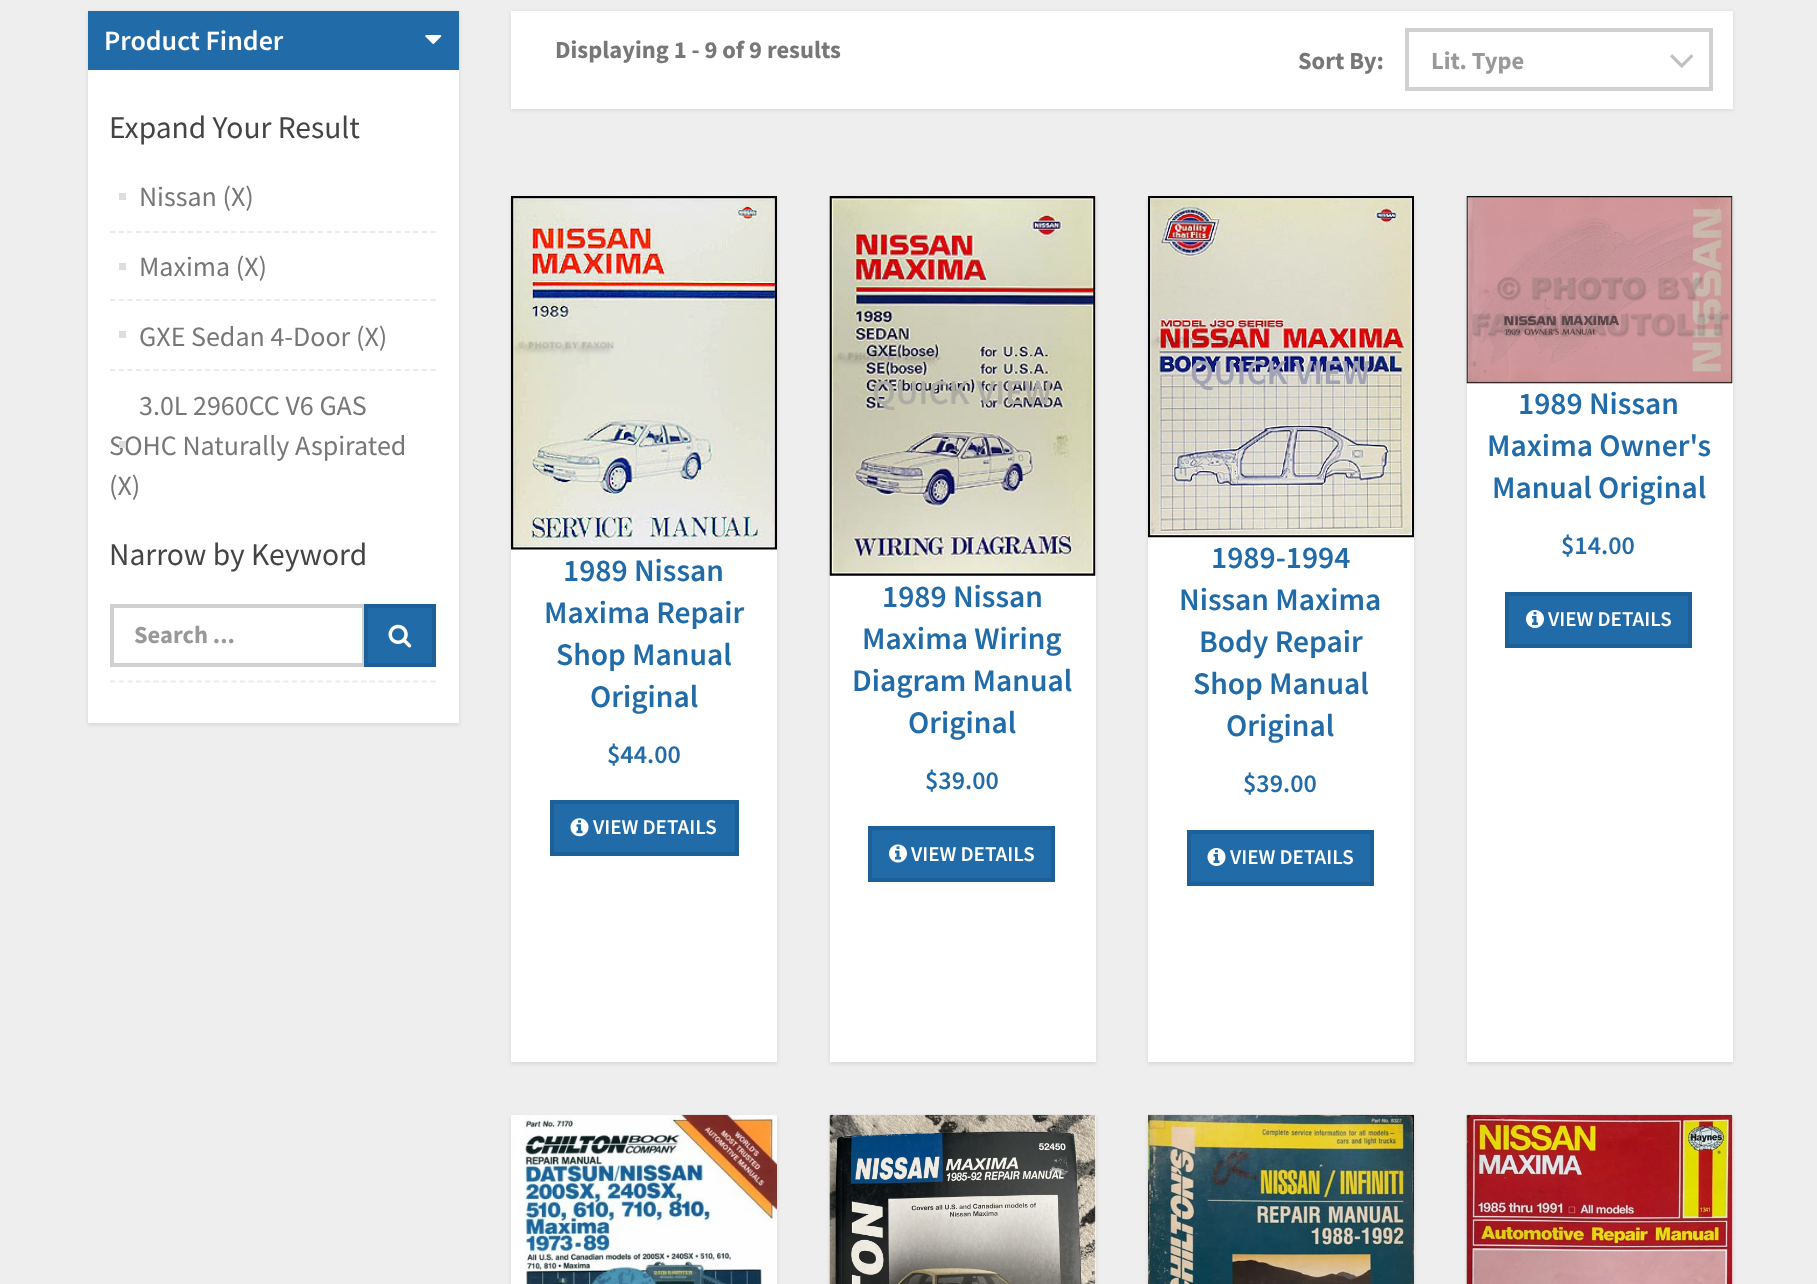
<!DOCTYPE html>
<meta charset="utf-8">
<style>body { margin: 0 } canvas { display: block }</style>
<canvas id="canvas" width="1817" height="1284"></canvas>
<script type="module">
  const canvas = document.getElementById("canvas");
  const ctx = canvas.getContext("2d");
  ctx.miterLimit = 4;
  ctx.fontKerning = "normal";
  async function loadImage(src) {
    const img = new Image();
    img.src = src;
    await img.decode();
    return img;
  }

  ctx.fillStyle = "#eeeeee";
  ctx.fillRect(0, 0, 1817, 1284);
  ctx.fillStyle = "rgba(0, 0, 0, 0.1)";
  ctx.filter = "blur(2px)";
  ctx.beginPath();
  ctx.rect(88, 12, 371, 713);
  ctx.fill();
  ctx.filter = "none";
  ctx.fillStyle = "#ffffff";
  ctx.fillRect(88, 70, 371, 653);
  ctx.fillStyle = "#206ba8";
  ctx.fillRect(88, 11, 371, 59);
  ctx.font = "600 28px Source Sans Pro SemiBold";
  ctx.fillStyle = "#ffffff";
  ctx.fillText("Product Finder", 104, 50);
  ctx.drawImage(await loadImage("img1.png"), 425, 35, 17, 9);
  ctx.font = "31.5px Source Sans Pro";
  ctx.fillStyle = "#444444";
  ctx.fillText("Expand Your Result", 109, 138);
  ctx.beginPath();
  ctx.moveTo(110, 232);
  ctx.lineTo(436, 232);
  ctx.strokeStyle = "#ebebeb";
  ctx.lineWidth = 1.8;
  ctx.setLineDash([5.25, 3.41]);
  ctx.stroke();
  ctx.fillStyle = "#dddddd";
  ctx.fillRect(119, 193, 7, 7);
  ctx.font = "28px Source Sans Pro";
  ctx.fillStyle = "#777777";
  ctx.fillText("Nissan (X)", 139, 206);
  ctx.beginPath();
  ctx.moveTo(110, 300);
  ctx.lineTo(436, 300);
  ctx.stroke();
  ctx.fillStyle = "#dddddd";
  ctx.fillRect(119, 263, 7, 7);
  ctx.fillStyle = "#777777";
  ctx.fillText("Maxima (X)", 139, 276);
  ctx.beginPath();
  ctx.moveTo(110, 370);
  ctx.lineTo(436, 370);
  ctx.stroke();
  ctx.fillStyle = "#dddddd";
  ctx.fillRect(119, 331, 7, 7);
  ctx.fillStyle = "#777777";
  ctx.fillText("GXE Sedan 4-Door (X)", 139, 346);
  ctx.fillText("3.0L 2960CC V6 GAS", 139, 415);
  ctx.fillText("SOHC Naturally Aspirated", 109, 455);
  ctx.fillStyle = "#dddddd";
  ctx.fillRect(119, 441, 7, 7);
  ctx.fillStyle = "#777777";
  ctx.fillText("(X)", 109, 495);
  ctx.font = "31.5px Source Sans Pro";
  ctx.fillStyle = "#444444";
  ctx.fillText("Narrow by Keyword", 109, 565);
  ctx.beginPath();
  ctx.moveTo(110, 681.5);
  ctx.lineTo(436, 681.5);
  ctx.stroke();
  ctx.strokeStyle = "#d0d0d0";
  ctx.lineWidth = 4;
  ctx.setLineDash([]);
  ctx.strokeRect(112, 606, 252, 59);
  ctx.font = "bold 24.5px Source Sans Pro";
  ctx.fillStyle = "#999999";
  ctx.fillText("Search ...", 134, 643);
  ctx.fillStyle = "#206ba8";
  ctx.beginPath();
  ctx.rect(366, 606, 68, 59);
  ctx.fill();
  ctx.strokeStyle = "#1d6097";
  ctx.stroke();
  ctx.drawImage(await loadImage("img2.png"), 388, 624, 24, 24);
  ctx.fillStyle = "rgba(0, 0, 0, 0.1)";
  ctx.filter = "blur(2px)";
  ctx.beginPath();
  ctx.rect(511, 12, 1222, 98);
  ctx.fill();
  ctx.filter = "none";
  ctx.fillStyle = "#ffffff";
  ctx.fillRect(511, 11, 1222, 98);
  ctx.fillStyle = "#777777";
  ctx.fillText("Displaying 1 - 9 of 9 results", 555, 58);
  ctx.fillText("Sort By:", 1298, 69);
  ctx.drawImage(await loadImage("img3.png"), 1670, 54, 23, 14);
  ctx.strokeStyle = "#d0d0d0";
  ctx.strokeRect(1407, 30, 304, 59);
  ctx.fillStyle = "#999999";
  ctx.fillText("Lit. Type", 1431, 69);
  ctx.fillStyle = "rgba(0, 0, 0, 0.1)";
  ctx.filter = "blur(2px)";
  ctx.beginPath();
  ctx.rect(830, 198, 266, 866);
  ctx.fill();
  ctx.filter = "none";
  ctx.fillStyle = "#ffffff";
  ctx.fillRect(830, 196, 266, 866);
  ctx.drawImage(await loadImage("img4.png"), 829, 196, 267, 380);
  ctx.font = "600 35px Source Sans Pro SemiBold";
  ctx.fillStyle = "#adaca4";
  ctx.fillText("QUICK VIEW", 872, 404);
  ctx.font = "600 31.5px Source Sans Pro SemiBold";
  ctx.fillStyle = "#206ba8";
  ctx.fillText("1989 Nissan", 882, 607);
  ctx.fillText("Maxima Wiring", 862, 649);
  ctx.fillText("Diagram Manual", 852, 691);
  ctx.fillText("Original", 908, 733);
  ctx.font = "600 26px Source Sans Pro SemiBold";
  ctx.fillText("$39.00", 925, 789);
  ctx.beginPath();
  ctx.rect(870, 828, 183, 52);
  ctx.fill();
  ctx.strokeStyle = "#1d6097";
  ctx.stroke();
  ctx.drawImage(await loadImage("img5.png"), 889, 844, 18, 19);
  ctx.font = "600 21px Source Sans Pro SemiBold";
  ctx.fillStyle = "#ffffff";
  ctx.fillText("VIEW DETAILS", 911, 861);
  ctx.fillStyle = "rgba(0, 0, 0, 0.1)";
  ctx.filter = "blur(2px)";
  ctx.beginPath();
  ctx.rect(1148, 198, 266, 866);
  ctx.fill();
  ctx.filter = "none";
  ctx.fillStyle = "#ffffff";
  ctx.fillRect(1148, 537, 266, 525);
  ctx.drawImage(await loadImage("img6.png"), 1148, 196, 266, 342);
  ctx.font = "600 35px Source Sans Pro SemiBold";
  ctx.fillStyle = "#a1a2b4";
  ctx.fillText("QUICK VIEW", 1190, 384);
  ctx.font = "600 31.5px Source Sans Pro SemiBold";
  ctx.fillStyle = "#206ba8";
  ctx.fillText("1989-1994", 1211, 568);
  ctx.fillText("Nissan Maxima", 1179, 610);
  ctx.fillText("Body Repair", 1199, 652);
  ctx.fillText("Shop Manual", 1193, 694);
  ctx.fillText("Original", 1226, 736);
  ctx.font = "600 26px Source Sans Pro SemiBold";
  ctx.fillText("$39.00", 1243, 792);
  ctx.beginPath();
  ctx.rect(1189, 832, 183, 52);
  ctx.fill();
  ctx.stroke();
  ctx.drawImage(await loadImage("img7.png"), 1207, 848, 19, 18);
  ctx.font = "600 21px Source Sans Pro SemiBold";
  ctx.fillStyle = "#ffffff";
  ctx.fillText("VIEW DETAILS", 1230, 864);
  ctx.fillStyle = "rgba(0, 0, 0, 0.1)";
  ctx.filter = "blur(2px)";
  ctx.beginPath();
  ctx.rect(1467, 198, 266, 866);
  ctx.fill();
  ctx.filter = "none";
  ctx.fillStyle = "#ffffff";
  ctx.fillRect(1467, 196, 266, 866);
  ctx.drawImage(await loadImage("img8.png"), 1466, 196, 267, 188);
  ctx.font = "600 31.5px Source Sans Pro SemiBold";
  ctx.fillStyle = "#206ba8";
  ctx.fillText("1989 Nissan", 1518, 414);
  ctx.fillText("Maxima Owner's", 1487, 456);
  ctx.fillText("Manual Original", 1492, 498);
  ctx.font = "600 26px Source Sans Pro SemiBold";
  ctx.fillText("$14.00", 1561, 554);
  ctx.beginPath();
  ctx.rect(1507, 594, 183, 52);
  ctx.fill();
  ctx.stroke();
  ctx.drawImage(await loadImage("img9.png"), 1526, 610, 18, 18);
  ctx.font = "600 21px Source Sans Pro SemiBold";
  ctx.fillStyle = "#ffffff";
  ctx.fillText("VIEW DETAILS", 1548, 626);
  ctx.fillStyle = "rgba(0, 0, 0, 0.1)";
  ctx.filter = "blur(2px)";
  ctx.beginPath();
  ctx.rect(511, 198, 266, 866);
  ctx.fill();
  ctx.filter = "none";
  ctx.fillStyle = "#ffffff";
  ctx.fillRect(511, 549, 266, 513);
  ctx.drawImage(await loadImage("img10.png"), 511, 196, 266, 354);
  ctx.font = "600 31.5px Source Sans Pro SemiBold";
  ctx.fillStyle = "#206ba8";
  ctx.fillText("1989 Nissan", 563, 581);
  ctx.fillText("Maxima Repair", 544, 623);
  ctx.fillText("Shop Manual", 556, 665);
  ctx.fillText("Original", 590, 707);
  ctx.font = "600 26px Source Sans Pro SemiBold";
  ctx.fillText("$44.00", 607, 763);
  ctx.beginPath();
  ctx.rect(552, 802, 185, 52);
  ctx.fill();
  ctx.stroke();
  ctx.drawImage(await loadImage("img11.png"), 570, 818, 19, 19);
  ctx.font = "600 21px Source Sans Pro SemiBold";
  ctx.fillStyle = "#ffffff";
  ctx.fillText("VIEW DETAILS", 593, 834);
  ctx.fillStyle = "rgba(0, 0, 0, 0.1)";
  ctx.filter = "blur(2px)";
  ctx.beginPath();
  ctx.rect(511, 1117, 266, 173);
  ctx.fill();
  ctx.filter = "none";
  ctx.fillStyle = "#ffffff";
  ctx.fillRect(511, 1115, 12, 169);
  ctx.drawImage(await loadImage("img12.png"), 523, 1114, 254, 170);
  ctx.fillStyle = "rgba(0, 0, 0, 0.1)";
  ctx.filter = "blur(2px)";
  ctx.beginPath();
  ctx.rect(830, 1117, 266, 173);
  ctx.fill();
  ctx.filter = "none";
  ctx.fillStyle = "#ffffff";
  ctx.fillRect(1095, 1115, 1, 169);
  ctx.drawImage(await loadImage("img13.png"), 829, 1114, 267, 170);
  ctx.fillStyle = "rgba(0, 0, 0, 0.1)";
  ctx.filter = "blur(2px)";
  ctx.beginPath();
  ctx.rect(1148, 1117, 266, 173);
  ctx.fill();
  ctx.filter = "none";
  ctx.drawImage(await loadImage("img14.png"), 1148, 1114, 266, 170);
  ctx.filter = "blur(2px)";
  ctx.beginPath();
  ctx.rect(1467, 1117, 266, 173);
  ctx.fill();
  ctx.filter = "none";
  ctx.fillStyle = "#ffffff";
  ctx.fillRect(1732, 1115, 1, 169);
  ctx.drawImage(await loadImage("img15.png"), 1466, 1114, 267, 170);
</script>
